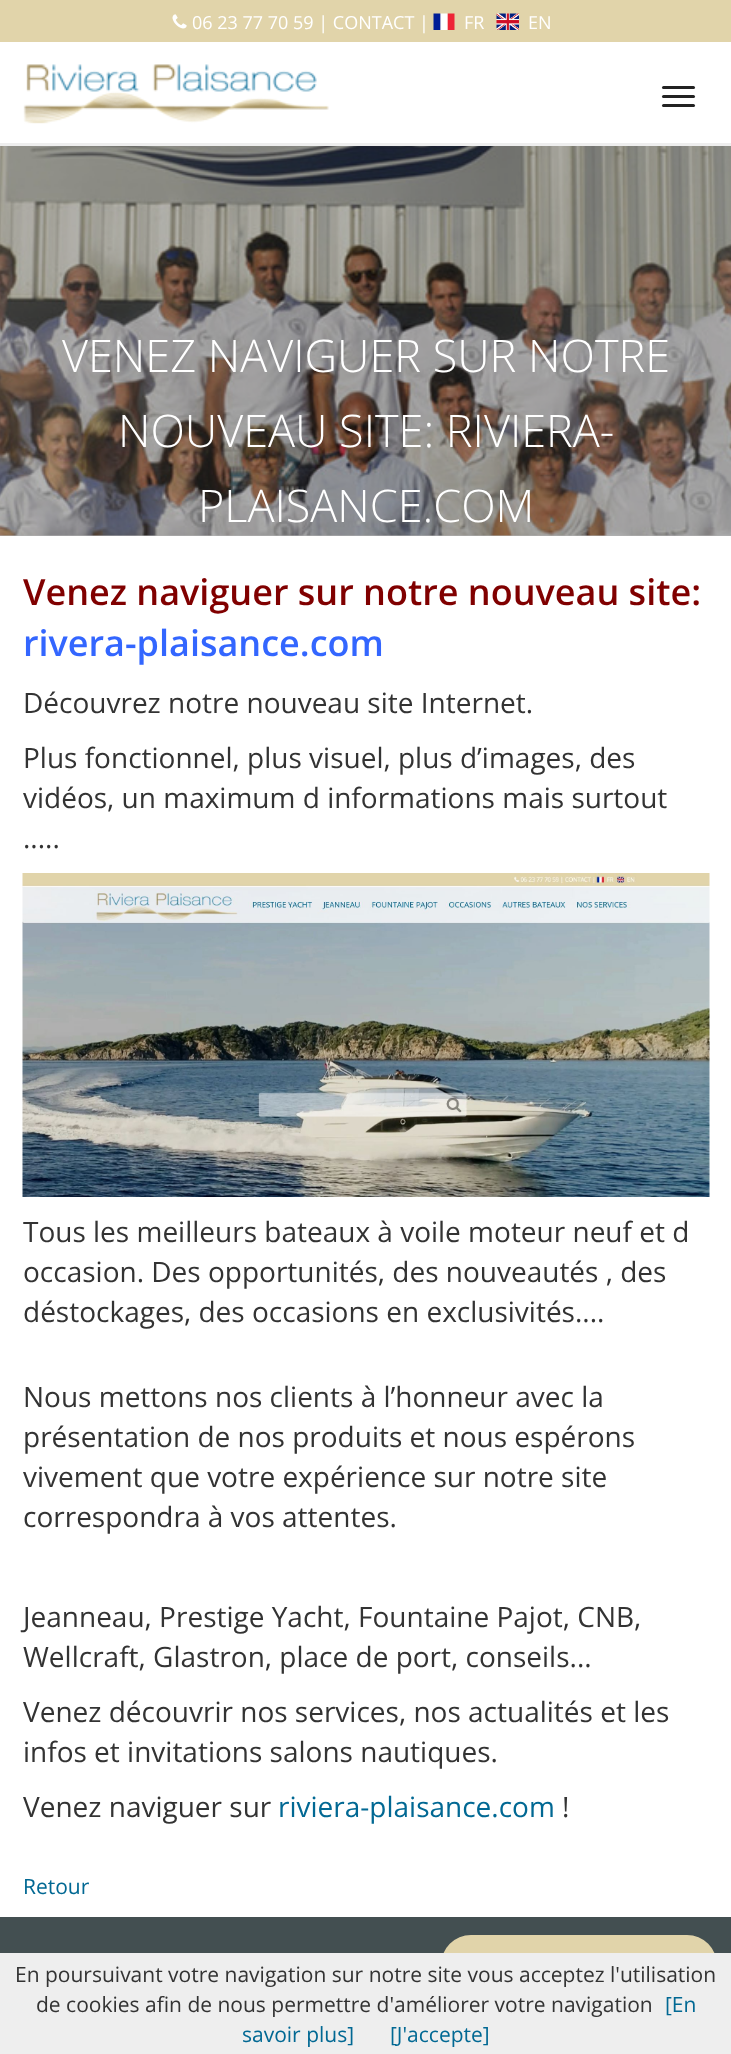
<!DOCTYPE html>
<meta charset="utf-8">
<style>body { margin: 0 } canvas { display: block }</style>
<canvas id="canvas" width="731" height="2054"></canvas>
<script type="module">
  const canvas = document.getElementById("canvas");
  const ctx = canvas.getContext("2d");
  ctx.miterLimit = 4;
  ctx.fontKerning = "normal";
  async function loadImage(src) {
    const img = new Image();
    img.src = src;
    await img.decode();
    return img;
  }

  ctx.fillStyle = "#ffffff";
  ctx.fillRect(0, 0, 731, 2054);
  ctx.fillStyle = "#b3b3b3";
  ctx.fillRect(0, 535, 731, 1);
  ctx.fillStyle = "#eeeeee";
  ctx.fillRect(0, 143, 731, 3);
  ctx.fillStyle = "#e1d4aa";
  ctx.fillRect(0, 0, 731, 42);
  ctx.drawImage(await loadImage("img1.png"), 172, 14, 15, 15);
  ctx.font = "18px Open Sans";
  ctx.fillStyle = "#ffffff";
  ctx.fillText("06 23 77 70 59 | CONTACT |", 192, 29);
  ctx.drawImage(await loadImage("img2.png"), 433, 13, 22, 17);
  ctx.fillText("FR", 464, 29);
  ctx.drawImage(await loadImage("img3.png"), 496, 13, 23, 17);
  ctx.fillText("EN", 528, 29);
  ctx.drawImage(await loadImage("img4.png"), 23, 64, 306, 60);
  ctx.fillStyle = "#222222";
  ctx.beginPath();
  ctx.roundRect(662, 86, 33, 3, 1.5);
  ctx.fill();
  ctx.beginPath();
  ctx.roundRect(662, 95, 33, 3, 1.5);
  ctx.fill();
  ctx.beginPath();
  ctx.roundRect(662, 104, 33, 3, 1.5);
  ctx.fill();
  ctx.drawImage(await loadImage("img5.png"), 0, 146, 731, 390);
  ctx.font = "300 45px Open Sans";
  ctx.fillStyle = "#ffffff";
  ctx.fillText("VENEZ NAVIGUER SUR NOTRE", 62, 372);
  ctx.fillText("NOUVEAU SITE: RIVIERA-", 118, 447);
  ctx.fillText("PLAISANCE.COM", 198, 522);
  ctx.font = "600 36px Open Sans";
  ctx.fillStyle = "#800000";
  ctx.fillText("Venez naviguer sur notre nouveau site:", 23, 605);
  ctx.fillStyle = "#3366ff";
  ctx.fillText("rivera-plaisance.com", 23, 656);
  ctx.font = "28px Open Sans";
  ctx.fillStyle = "#333333";
  ctx.fillText("Découvrez notre nouveau site Internet.", 23, 713);
  ctx.fillText("Plus fonctionnel, plus visuel, plus d’images, des", 23, 768);
  ctx.fillText("vidéos, un maximum d informations mais surtout", 23, 808);
  ctx.fillText(".....", 23, 848);
  ctx.drawImage(await loadImage("img6.png"), 22, 873, 688, 324);
  ctx.fillText("Tous les meilleurs bateaux à voile moteur neuf et d", 23, 1242);
  ctx.fillText("occasion. Des opportunités, des nouveautés , des", 23, 1282);
  ctx.fillText("déstockages, des occasions en exclusivités....", 23, 1322);
  ctx.fillText("Nous mettons nos clients à l’honneur avec la", 23, 1407);
  ctx.fillText("présentation de nos produits et nous espérons", 23, 1447);
  ctx.fillText("vivement que votre expérience sur notre site", 23, 1487);
  ctx.fillText("correspondra à vos attentes.", 23, 1527);
  ctx.fillText("Jeanneau, Prestige Yacht, Fountaine Pajot, CNB,", 23, 1627);
  ctx.fillText("Wellcraft, Glastron, place de port, conseils...", 23, 1667);
  ctx.fillText("Venez découvrir nos services, nos actualités et les", 23, 1722);
  ctx.fillText("infos et invitations salons nautiques.", 23, 1762);
  ctx.fillText("Venez naviguer sur", 23, 1817);
  ctx.fillStyle = "#016893";
  ctx.fillText("riviera-plaisance.com", 278, 1817);
  ctx.fillStyle = "#333333";
  ctx.fillText("!", 562, 1817);
  ctx.font = "21px Open Sans";
  ctx.fillStyle = "#016893";
  ctx.fillText("Retour", 23, 1894);
  ctx.fillStyle = "#434f51";
  ctx.fillRect(0, 1917, 731, 36);
  ctx.fillStyle = "#e1d4aa";
  ctx.beginPath();
  ctx.roundRect(441, 1935, 276, 60, 30);
  ctx.fill();
  ctx.fillStyle = "#eeeeee";
  ctx.fillRect(0, 1953, 731, 101);
  ctx.fillStyle = "#333333";
  ctx.fillText("En poursuivant votre navigation sur notre site vous acceptez l'utilisation", 15, 1982);
  ctx.fillText("de cookies afin de nous permettre d'améliorer votre navigation", 36, 2012);
  ctx.fillStyle = "#016893";
  ctx.fillText("[En", 665, 2012);
  ctx.fillText("savoir plus]", 242, 2042);
  ctx.fillText("[J'accepte]", 390, 2042);
</script>
